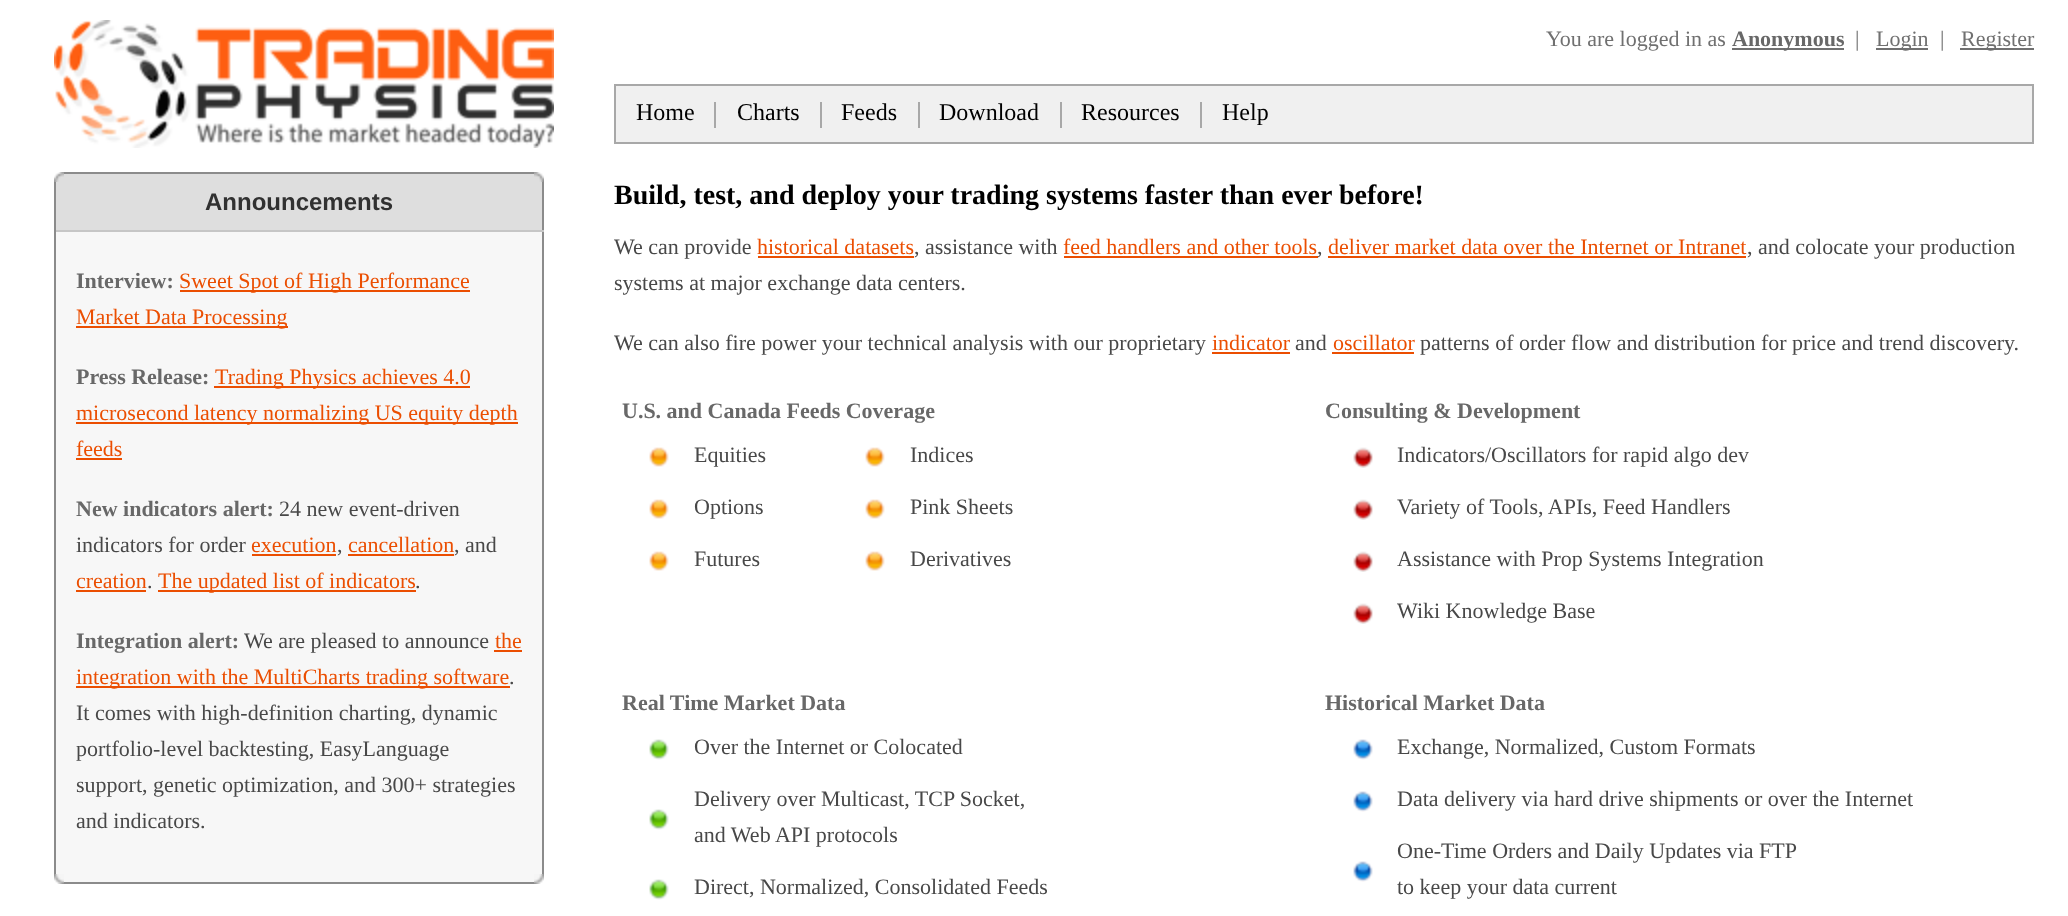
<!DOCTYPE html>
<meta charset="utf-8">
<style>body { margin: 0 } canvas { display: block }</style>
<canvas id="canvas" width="2068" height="916"></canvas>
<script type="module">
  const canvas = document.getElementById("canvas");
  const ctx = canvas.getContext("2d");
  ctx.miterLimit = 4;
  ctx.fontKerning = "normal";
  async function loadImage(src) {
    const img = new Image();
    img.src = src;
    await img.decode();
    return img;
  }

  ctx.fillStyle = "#ffffff";
  ctx.fillRect(0, 0, 2068, 916);
  ctx.drawImage(await loadImage("img1.png"), 54, 20, 500, 128);
  ctx.font = "22px Liberation Serif";
  ctx.fillStyle = "#707070";
  ctx.fillText("You are logged in as", 1546, 46);
  ctx.fillRect(1732, 48, 112, 2);
  ctx.font = "bold 22px Liberation Serif";
  ctx.fillStyle = "#686868";
  ctx.fillText("Anonymous", 1732, 46);
  ctx.font = "22px Liberation Serif";
  ctx.fillStyle = "#707070";
  ctx.fillText("|", 1855, 46);
  ctx.fillRect(1876, 48, 52, 2);
  ctx.fillText("Login", 1876, 46);
  ctx.fillText("|", 1940, 46);
  ctx.fillRect(1960, 48, 74, 2);
  ctx.fillText("Register", 1961, 46);
  ctx.fillStyle = "#f0f0f0";
  ctx.beginPath();
  ctx.rect(615, 85, 1418, 58);
  ctx.fill();
  ctx.strokeStyle = "#a8a8a8";
  ctx.lineWidth = 2;
  ctx.stroke();
  ctx.font = "24px Liberation Serif";
  ctx.fillStyle = "#000000";
  ctx.fillText("Home", 636, 120);
  ctx.fillStyle = "#a8a8a8";
  ctx.fillRect(714, 102, 2, 26);
  ctx.fillStyle = "#000000";
  ctx.fillText("Charts", 737, 120);
  ctx.fillStyle = "#a8a8a8";
  ctx.fillRect(820, 102, 2, 26);
  ctx.fillStyle = "#000000";
  ctx.fillText("Feeds", 841, 120);
  ctx.fillStyle = "#a8a8a8";
  ctx.fillRect(918, 102, 2, 26);
  ctx.fillStyle = "#000000";
  ctx.fillText("Download", 939, 120);
  ctx.fillStyle = "#a8a8a8";
  ctx.fillRect(1060, 102, 2, 26);
  ctx.fillStyle = "#000000";
  ctx.fillText("Resources", 1081, 120);
  ctx.fillStyle = "#a8a8a8";
  ctx.fillRect(1200, 102, 2, 26);
  ctx.fillStyle = "#000000";
  ctx.fillText("Help", 1222, 120);
  ctx.drawImage(await loadImage("img2.png"), 54, 172, 10, 10);
  ctx.fillStyle = "#dedede";
  ctx.fillRect(64, 174, 470, 8);
  ctx.fillStyle = "#8b8b8b";
  ctx.fillRect(64, 172, 470, 2);
  ctx.drawImage(await loadImage("img3.png"), 534, 172, 10, 10);
  ctx.fillStyle = "#dedede";
  ctx.fillRect(56, 182, 486, 48);
  ctx.fillStyle = "#c6c6c6";
  ctx.fillRect(54, 230, 480, 2);
  ctx.fillStyle = "#8b8b8b";
  ctx.fillRect(54, 182, 2, 692);
  ctx.font = "bold 24px Liberation Sans";
  ctx.fillStyle = "#313131";
  ctx.fillText("Announcements", 205, 210);
  ctx.fillStyle = "#8b8b8b";
  ctx.fillRect(542, 182, 2, 692);
  ctx.fillStyle = "#c6c6c6";
  ctx.fillRect(534, 230, 10, 2);
  ctx.fillStyle = "#f7f7f7";
  ctx.fillRect(56, 232, 486, 642);
  ctx.font = "bold 22px Liberation Serif";
  ctx.fillStyle = "#686868";
  ctx.fillText("Interview:", 76, 288);
  ctx.fillStyle = "#eb4e01";
  ctx.fillRect(180, 290, 290, 2);
  ctx.font = "22px Liberation Serif";
  ctx.fillText("Sweet Spot of High Performance", 179, 288);
  ctx.fillRect(76, 326, 212, 2);
  ctx.fillText("Market Data Processing", 76, 324);
  ctx.font = "bold 22px Liberation Serif";
  ctx.fillStyle = "#686868";
  ctx.fillText("Press Release:", 76, 384);
  ctx.fillStyle = "#eb4e01";
  ctx.fillRect(214, 386, 256, 2);
  ctx.font = "22px Liberation Serif";
  ctx.fillText("Trading Physics achieves 4.0", 215, 384);
  ctx.fillRect(76, 422, 442, 2);
  ctx.fillText("microsecond latency normalizing US equity depth", 76, 420);
  ctx.fillText("feeds", 76, 456);
  ctx.fillRect(76, 458, 46, 2);
  ctx.font = "bold 22px Liberation Serif";
  ctx.fillStyle = "#686868";
  ctx.fillText("New indicators alert:", 76, 516);
  ctx.font = "22px Liberation Serif";
  ctx.fillStyle = "#484848";
  ctx.fillText("24 new event-driven", 279, 516);
  ctx.fillText("indicators for order", 76, 552);
  ctx.fillStyle = "#eb4e01";
  ctx.fillText("execution", 251, 552);
  ctx.fillRect(252, 554, 84, 2);
  ctx.fillStyle = "#484848";
  ctx.fillText(",", 337, 552);
  ctx.fillStyle = "#eb4e01";
  ctx.fillText("cancellation", 348, 552);
  ctx.fillRect(348, 554, 106, 2);
  ctx.fillStyle = "#484848";
  ctx.fillText(", and", 454, 552);
  ctx.fillStyle = "#eb4e01";
  ctx.fillText("creation", 76, 588);
  ctx.fillRect(76, 590, 70, 2);
  ctx.fillStyle = "#484848";
  ctx.fillText(".", 147, 588);
  ctx.fillStyle = "#eb4e01";
  ctx.fillRect(158, 590, 258, 2);
  ctx.fillText("The updated list of indicators", 158, 588);
  ctx.fillStyle = "#484848";
  ctx.fillText(".", 415, 588);
  ctx.font = "bold 22px Liberation Serif";
  ctx.fillStyle = "#686868";
  ctx.fillText("Integration alert:", 76, 648);
  ctx.font = "22px Liberation Serif";
  ctx.fillStyle = "#484848";
  ctx.fillText("We are pleased to announce", 244, 648);
  ctx.fillStyle = "#eb4e01";
  ctx.fillText("the", 495, 648);
  ctx.fillRect(494, 650, 28, 2);
  ctx.fillRect(76, 686, 434, 2);
  ctx.fillText("integration with the MultiCharts trading software", 76, 684);
  ctx.fillStyle = "#484848";
  ctx.fillText(".", 509, 684);
  ctx.fillText("It comes with high-definition charting, dynamic", 76, 720);
  ctx.fillText("portfolio-level backtesting, EasyLanguage", 76, 756);
  ctx.fillText("support, genetic optimization, and 300+ strategies", 76, 792);
  ctx.fillText("and indicators.", 76, 828);
  ctx.drawImage(await loadImage("img4.png"), 54, 874, 10, 10);
  ctx.fillStyle = "#f7f7f7";
  ctx.fillRect(64, 874, 470, 8);
  ctx.fillStyle = "#8b8b8b";
  ctx.fillRect(64, 882, 470, 2);
  ctx.drawImage(await loadImage("img5.png"), 534, 874, 10, 10);
  ctx.font = "bold 28px Liberation Serif";
  ctx.fillStyle = "#000000";
  ctx.fillText("Build, test, and deploy your trading systems faster than ever before!", 614, 204);
  ctx.font = "22px Liberation Serif";
  ctx.fillStyle = "#484848";
  ctx.fillText("We can provide", 614, 254);
  ctx.fillStyle = "#eb4e01";
  ctx.fillText("historical datasets", 757, 254);
  ctx.fillRect(758, 256, 156, 2);
  ctx.fillStyle = "#484848";
  ctx.fillText(", assistance with", 914, 254);
  ctx.fillStyle = "#eb4e01";
  ctx.fillText("feed handlers and other tools", 1063, 254);
  ctx.fillRect(1064, 256, 254, 2);
  ctx.fillStyle = "#484848";
  ctx.fillText(",", 1317, 254);
  ctx.fillStyle = "#eb4e01";
  ctx.fillText("deliver market data over the Internet or Intranet", 1328, 254);
  ctx.fillRect(1328, 256, 418, 2);
  ctx.fillStyle = "#484848";
  ctx.fillText(", and colocate your production", 1747, 254);
  ctx.fillText("systems at major exchange data centers.", 614, 290);
  ctx.fillText("We can also fire power your technical analysis with our proprietary", 614, 350);
  ctx.fillStyle = "#eb4e01";
  ctx.fillText("indicator", 1212, 350);
  ctx.fillRect(1212, 352, 78, 2);
  ctx.fillStyle = "#484848";
  ctx.fillText("and", 1295, 350);
  ctx.fillStyle = "#eb4e01";
  ctx.fillText("oscillator", 1333, 350);
  ctx.fillRect(1332, 352, 82, 2);
  ctx.fillStyle = "#484848";
  ctx.fillText("patterns of order flow and distribution for price and trend discovery.", 1420, 350);
  ctx.font = "bold 22px Liberation Serif";
  ctx.fillStyle = "#686868";
  ctx.fillText("U.S. and Canada Feeds Coverage", 622, 418);
  ctx.drawImage(await loadImage("img6.png"), 649, 447, 20, 20);
  ctx.font = "22px Liberation Serif";
  ctx.fillStyle = "#484848";
  ctx.fillText("Equities", 694, 462);
  ctx.drawImage(await loadImage("img6.png"), 649, 499, 20, 20);
  ctx.fillText("Options", 694, 514);
  ctx.drawImage(await loadImage("img6.png"), 649, 551, 20, 20);
  ctx.fillText("Futures", 694, 566);
  ctx.drawImage(await loadImage("img6.png"), 865, 447, 20, 20);
  ctx.fillText("Indices", 910, 462);
  ctx.drawImage(await loadImage("img6.png"), 865, 499, 20, 20);
  ctx.fillText("Pink Sheets", 910, 514);
  ctx.drawImage(await loadImage("img6.png"), 865, 551, 20, 20);
  ctx.fillText("Derivatives", 910, 566);
  ctx.font = "bold 22px Liberation Serif";
  ctx.fillStyle = "#686868";
  ctx.fillText("Consulting & Development", 1325, 418);
  ctx.drawImage(await loadImage("img7.png"), 1353, 447, 20, 21);
  ctx.font = "22px Liberation Serif";
  ctx.fillStyle = "#484848";
  ctx.fillText("Indicators/Oscillators for rapid algo dev", 1397, 462);
  ctx.drawImage(await loadImage("img7.png"), 1353, 499, 20, 21);
  ctx.fillText("Variety of Tools, APIs, Feed Handlers", 1397, 514);
  ctx.drawImage(await loadImage("img7.png"), 1353, 551, 20, 21);
  ctx.fillText("Assistance with Prop Systems Integration", 1397, 566);
  ctx.drawImage(await loadImage("img7.png"), 1353, 603, 20, 21);
  ctx.fillText("Wiki Knowledge Base", 1397, 618);
  ctx.font = "bold 22px Liberation Serif";
  ctx.fillStyle = "#686868";
  ctx.fillText("Real Time Market Data", 622, 710);
  ctx.drawImage(await loadImage("img8.png"), 649, 739, 20, 21);
  ctx.font = "22px Liberation Serif";
  ctx.fillStyle = "#484848";
  ctx.fillText("Over the Internet or Colocated", 694, 754);
  ctx.drawImage(await loadImage("img8.png"), 649, 809, 20, 21);
  ctx.fillText("Delivery over Multicast, TCP Socket,", 694, 806);
  ctx.fillText("and Web API protocols", 694, 842);
  ctx.drawImage(await loadImage("img8.png"), 649, 879, 20, 21);
  ctx.fillText("Direct, Normalized, Consolidated Feeds", 694, 894);
  ctx.font = "bold 22px Liberation Serif";
  ctx.fillStyle = "#686868";
  ctx.fillText("Historical Market Data", 1325, 710);
  ctx.drawImage(await loadImage("img9.png"), 1353, 739, 20, 21);
  ctx.font = "22px Liberation Serif";
  ctx.fillStyle = "#484848";
  ctx.fillText("Exchange, Normalized, Custom Formats", 1397, 754);
  ctx.drawImage(await loadImage("img9.png"), 1353, 791, 20, 21);
  ctx.fillText("Data delivery via hard drive shipments or over the Internet", 1397, 806);
  ctx.drawImage(await loadImage("img9.png"), 1353, 861, 20, 21);
  ctx.fillText("One-Time Orders and Daily Updates via FTP", 1397, 858);
  ctx.fillText("to keep your data current", 1397, 894);
</script>
